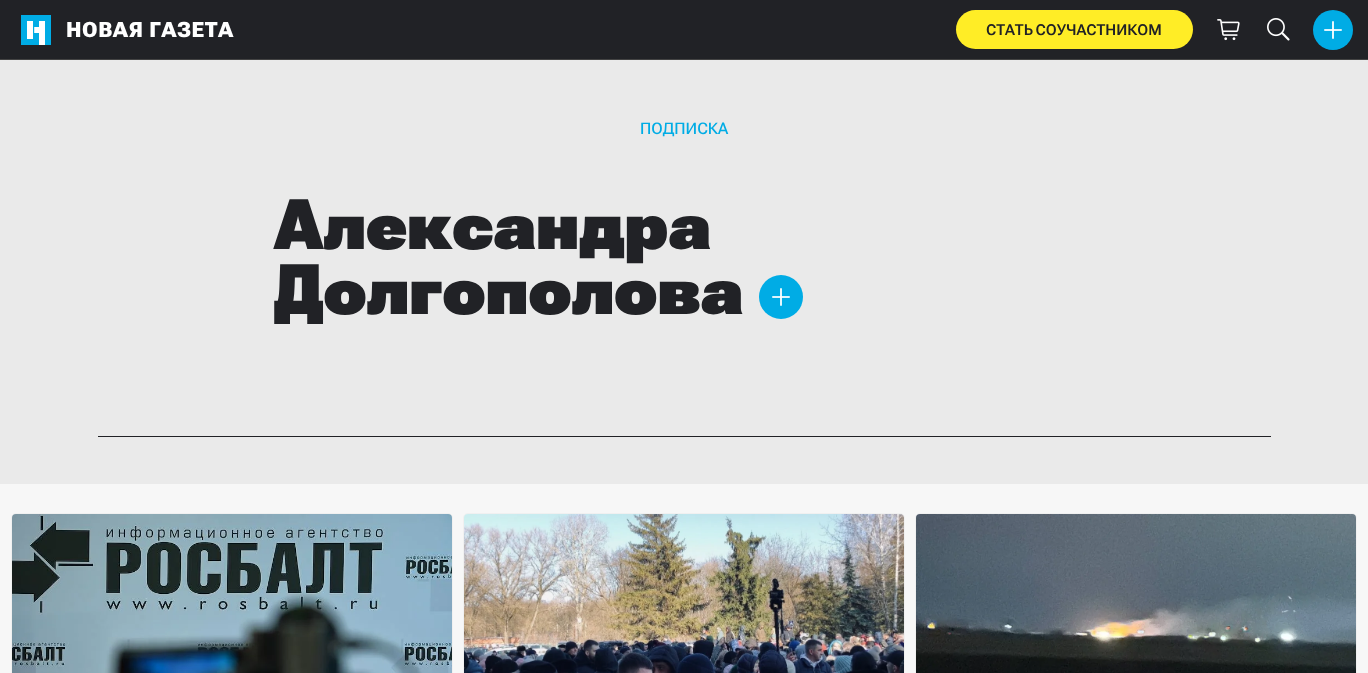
<!DOCTYPE html>
<meta charset="utf-8">
<style>body { margin: 0 } canvas { display: block }</style>
<canvas id="canvas" width="1368" height="673"></canvas>
<script type="module">
  const canvas = document.getElementById("canvas");
  const ctx = canvas.getContext("2d");
  ctx.miterLimit = 4;
  ctx.fontKerning = "normal";
  async function loadImage(src) {
    const img = new Image();
    img.src = src;
    await img.decode();
    return img;
  }

  ctx.fillStyle = "#f7f7f7";
  ctx.fillRect(0, 0, 1368, 673);
  ctx.fillStyle = "#212226";
  ctx.fillRect(0, 0, 1368, 59);
  ctx.fillStyle = "#434343";
  ctx.fillRect(0, 59, 1368, 1);
  ctx.drawImage(await loadImage("img1.png"), 21, 15, 30, 30);
  ctx.letterSpacing = "0.6px";
  ctx.font = "900 21px 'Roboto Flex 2'";
  ctx.fillStyle = "#ffffff";
  ctx.fillText("НОВАЯ ГАЗЕТА", 66, 37);
  ctx.fillStyle = "#ffed26";
  ctx.beginPath();
  ctx.roundRect(956, 10, 237, 39, 19.5);
  ctx.fill();
  ctx.letterSpacing = "0px";
  ctx.wordSpacing = "-1px";
  ctx.font = "600 15px Roboto Flex";
  ctx.fillStyle = "#212226";
  ctx.fillText("СТАТЬ СОУЧАСТНИКОМ", 986, 35);
  ctx.drawImage(await loadImage("img2.png"), 1217, 19, 23, 22);
  ctx.drawImage(await loadImage("img3.png"), 1267, 18, 23, 23);
  ctx.fillStyle = "#00ace5";
  ctx.beginPath();
  ctx.arc(1333, 30, 20, 0, Math.PI * 2);
  ctx.fill();
  ctx.drawImage(await loadImage("img4.png"), 1324, 21, 18, 18);
  ctx.fillStyle = "#eaeaea";
  ctx.fillRect(0, 60, 1368, 424);
  ctx.wordSpacing = "0px";
  ctx.font = "500 16px Roboto Flex";
  ctx.fillStyle = "#00ace5";
  ctx.fillText("ПОДПИСКА", 640, 134);
  ctx.font = "900 70px Roboto Flex";
  ctx.fillStyle = "#212226";
  ctx.fillText("Александра", 274, 249);
  ctx.fillText("Долгополова", 274, 314);
  ctx.fillStyle = "#00ace5";
  ctx.beginPath();
  ctx.arc(781, 297, 22, 0, Math.PI * 2);
  ctx.fill();
  ctx.drawImage(await loadImage("img4.png"), 772, 288, 18, 18);
  ctx.fillStyle = "#212226";
  ctx.fillRect(98, 436, 1173, 1);
  ctx.beginPath();
  ctx.roundRect(11.5, 513.5, 441, 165, 4.5);
  ctx.strokeStyle = "#f0f0f0";
  ctx.stroke();
  ctx.drawImage(await loadImage("img5.png"), 12, 514, 440, 159);
  ctx.beginPath();
  ctx.roundRect(463.5, 513.5, 441, 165, 4.5);
  ctx.stroke();
  ctx.drawImage(await loadImage("img6.png"), 464, 514, 440, 159);
  ctx.beginPath();
  ctx.roundRect(915.5, 513.5, 441, 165, 4.5);
  ctx.stroke();
  ctx.drawImage(await loadImage("img7.png"), 916, 514, 440, 159);
</script>
